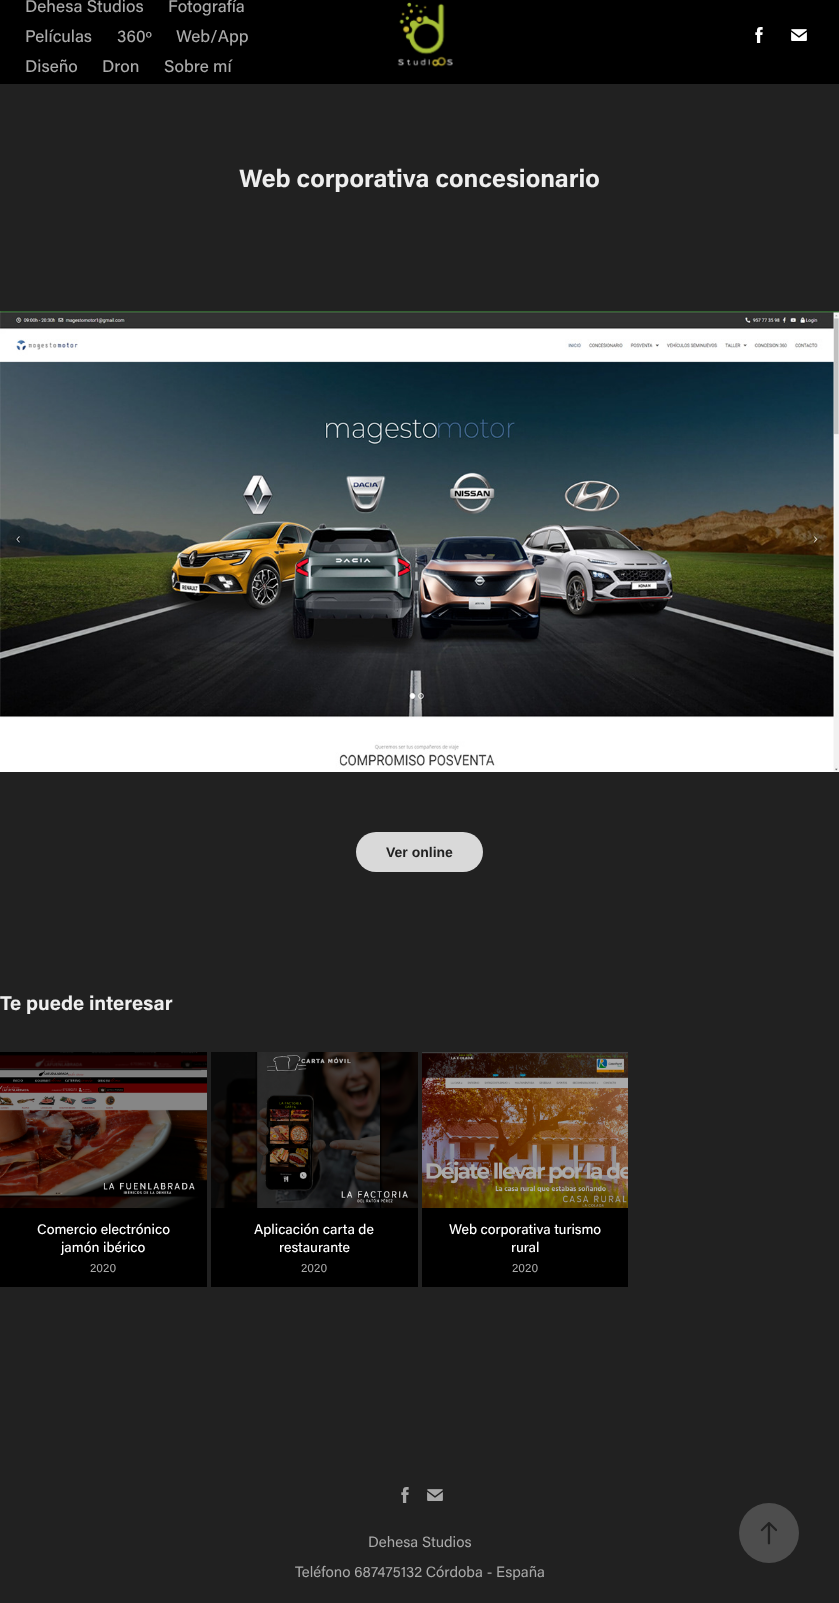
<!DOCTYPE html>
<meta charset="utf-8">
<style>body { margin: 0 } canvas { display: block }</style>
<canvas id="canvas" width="839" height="1603"></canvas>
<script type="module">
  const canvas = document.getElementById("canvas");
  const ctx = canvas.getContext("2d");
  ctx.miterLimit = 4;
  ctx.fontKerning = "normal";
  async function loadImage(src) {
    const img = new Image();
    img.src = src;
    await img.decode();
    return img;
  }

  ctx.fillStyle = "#212121";
  ctx.fillRect(0, 0, 839, 1603);
  ctx.fillStyle = "#000000";
  ctx.fillRect(0, 0, 839, 84);
  ctx.font = "500 17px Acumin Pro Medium";
  ctx.fillStyle = "#a9a9a9";
  ctx.fillText("Dehesa Studios", 25, 12);
  ctx.fillText("Fotografía", 168, 12);
  ctx.fillText("Películas", 25, 42);
  ctx.fillText("360º", 117, 42);
  ctx.fillText("Web/App", 176, 42);
  ctx.fillText("Diseño", 25, 72);
  ctx.fillText("Dron", 102, 72);
  ctx.fillText("Sobre mí", 164, 72);
  ctx.drawImage(await loadImage("img1.png"), 397, 2, 56, 65);
  ctx.drawImage(await loadImage("img2.png"), 755, 27, 8, 16);
  ctx.drawImage(await loadImage("img3.png"), 791, 29, 16, 12);
  ctx.font = "bold 25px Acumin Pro";
  ctx.fillStyle = "#eeeeee";
  ctx.fillText("Web corporativa concesionario", 239, 187);
  ctx.drawImage(await loadImage("img4.png"), 0, 311, 839, 461);
  ctx.fillStyle = "#d9d9d9";
  ctx.beginPath();
  ctx.roundRect(356, 832, 127, 40, 20);
  ctx.fill();
  ctx.font = "bold 14px Liberation Sans";
  ctx.fillStyle = "#222222";
  ctx.fillText("Ver online", 386, 857);
  ctx.font = "bold 20px Acumin Pro";
  ctx.fillStyle = "#eeeeee";
  ctx.fillText("Te puede interesar", 0, 1010);
  ctx.drawImage(await loadImage("img5.png"), 0, 1052, 207, 156);
  ctx.fillStyle = "#000000";
  ctx.fillRect(0, 1208, 207, 79);
  ctx.font = "500 14px Acumin Pro Medium";
  ctx.fillStyle = "#ffffff";
  ctx.fillText("Comercio electrónico", 37, 1234);
  ctx.fillText("jamón ibérico", 61, 1252);
  ctx.font = "12px Acumin Pro";
  ctx.fillStyle = "#a9a9a9";
  ctx.fillText("2020", 90, 1272);
  ctx.drawImage(await loadImage("img6.png"), 211, 1052, 207, 156);
  ctx.fillStyle = "#000000";
  ctx.fillRect(211, 1208, 207, 79);
  ctx.font = "500 14px Acumin Pro Medium";
  ctx.fillStyle = "#ffffff";
  ctx.fillText("Aplicación carta de", 254, 1234);
  ctx.fillText("restaurante", 279, 1252);
  ctx.font = "12px Acumin Pro";
  ctx.fillStyle = "#a9a9a9";
  ctx.fillText("2020", 301, 1272);
  ctx.drawImage(await loadImage("img7.png"), 422, 1052, 206, 156);
  ctx.fillStyle = "#000000";
  ctx.fillRect(422, 1208, 206, 79);
  ctx.font = "500 14px Acumin Pro Medium";
  ctx.fillStyle = "#ffffff";
  ctx.fillText("Web corporativa turismo", 449, 1234);
  ctx.fillText("rural", 511, 1252);
  ctx.font = "12px Acumin Pro";
  ctx.fillStyle = "#a9a9a9";
  ctx.fillText("2020", 512, 1272);
  ctx.fillStyle = "#4d4d4d";
  ctx.beginPath();
  ctx.arc(769, 1533, 30, 0, Math.PI * 2);
  ctx.fill();
  ctx.drawImage(await loadImage("img8.png"), 760, 1522, 17, 23);
  ctx.drawImage(await loadImage("img9.png"), 401, 1487, 8, 16);
  ctx.drawImage(await loadImage("img10.png"), 427, 1489, 16, 12);
  ctx.font = "15px Acumin Pro";
  ctx.fillStyle = "#a9a9a9";
  ctx.fillText("Dehesa Studios", 368, 1547);
  ctx.fillText("Teléfono 687475132 Córdoba - España", 295, 1577);
</script>
